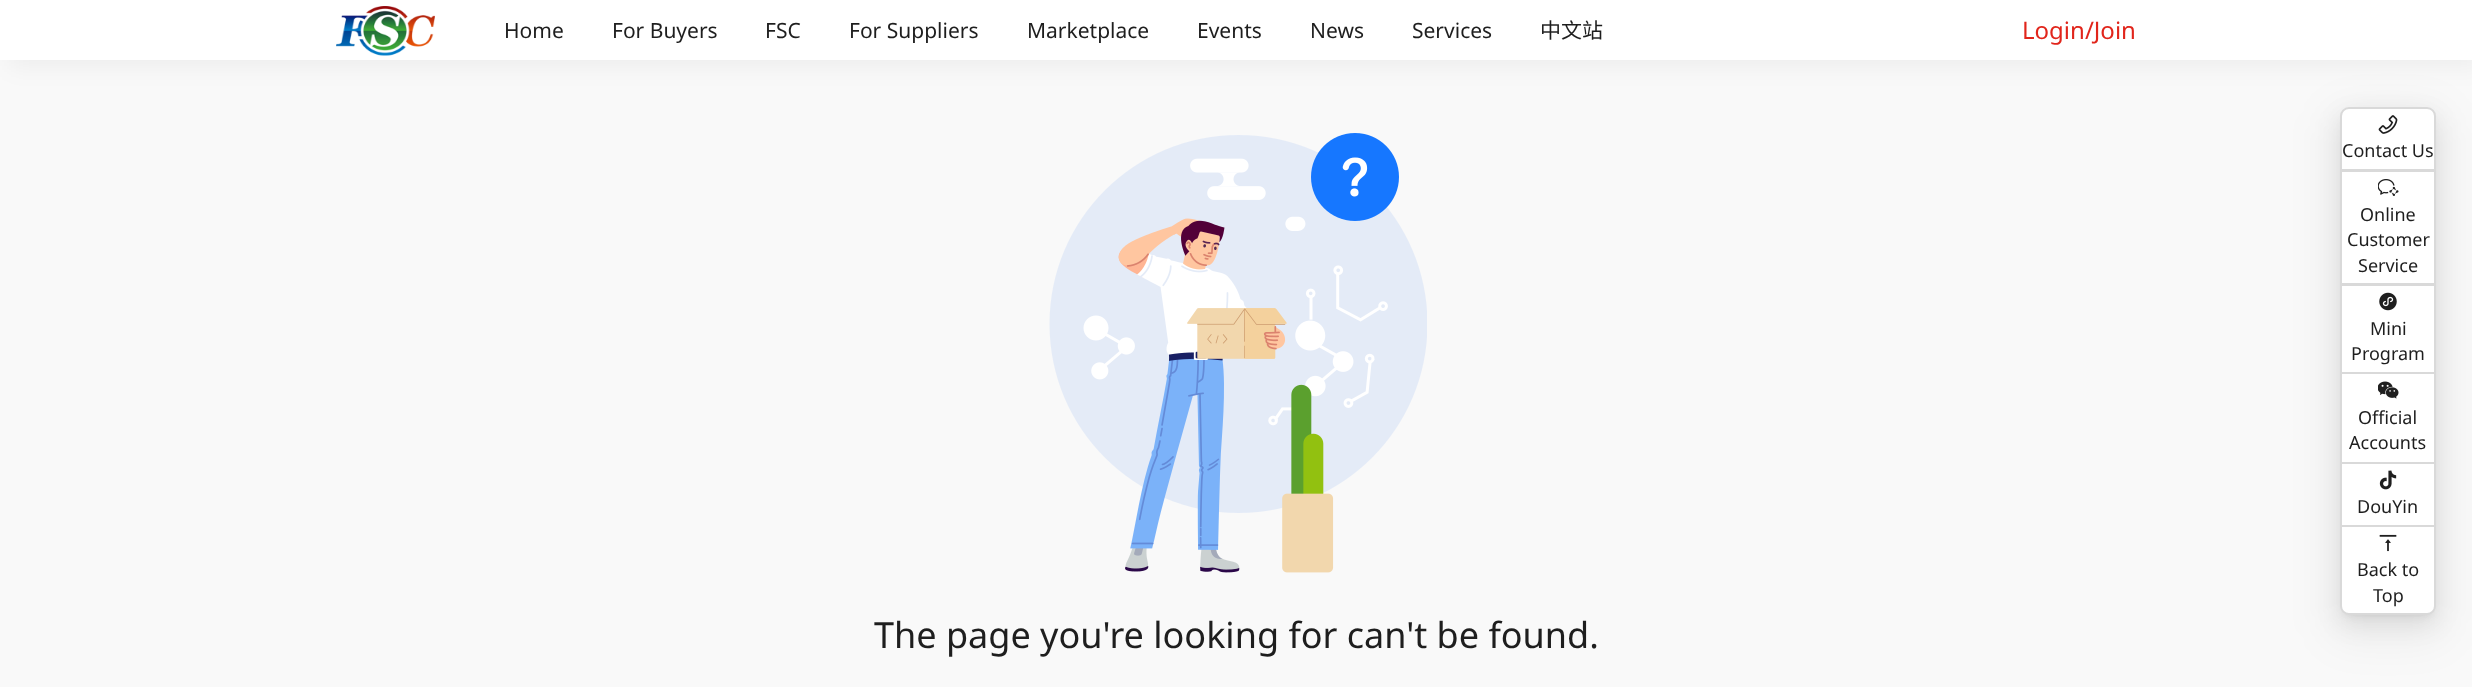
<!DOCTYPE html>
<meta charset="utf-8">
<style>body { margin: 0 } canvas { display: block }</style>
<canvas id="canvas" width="2472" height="687"></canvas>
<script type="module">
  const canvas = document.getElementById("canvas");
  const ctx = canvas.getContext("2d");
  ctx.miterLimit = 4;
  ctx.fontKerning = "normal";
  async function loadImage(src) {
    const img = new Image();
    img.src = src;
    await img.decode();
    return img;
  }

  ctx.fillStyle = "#f9f9f9";
  ctx.fillRect(0, 0, 2472, 687);
  ctx.fillStyle = "rgba(0, 0, 0, 0.05)";
  ctx.filter = "blur(12px)";
  ctx.beginPath();
  ctx.rect(9, 6, 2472, 60);
  ctx.fill();
  ctx.filter = "none";
  ctx.fillStyle = "#ffffff";
  ctx.fillRect(0, 0, 2472, 60);
  ctx.drawImage(await loadImage("img1.png"), 336, 6, 99, 50);
  ctx.font = "21px Noto Sans";
  ctx.fillStyle = "#1e1e1e";
  ctx.fillText("Home", 504, 38);
  ctx.fillText("For Buyers", 612, 38);
  ctx.fillText("FSC", 765, 38);
  ctx.fillText("For Suppliers", 849, 38);
  ctx.fillText("Marketplace", 1027, 38);
  ctx.fillText("Events", 1197, 38);
  ctx.fillText("News", 1310, 38);
  ctx.fillText("Services", 1412, 38);
  ctx.font = "21px Noto Sans SC";
  ctx.fillText("中文站", 1540, 38);
  ctx.font = "24px Noto Sans";
  ctx.fillStyle = "#e1251b";
  ctx.fillText("Login/Join", 2022, 39);
  ctx.fillStyle = "rgba(0, 0, 0, 0.05)";
  ctx.filter = "blur(21px)";
  ctx.beginPath();
  ctx.roundRect(2328, 108, 120, 533, 21);
  ctx.fill();
  ctx.filter = "none";
  ctx.fillStyle = "rgba(0, 0, 0, 0.12)";
  ctx.filter = "blur(4.5px)";
  ctx.beginPath();
  ctx.roundRect(2346, 117, 84, 497, 3);
  ctx.fill();
  ctx.filter = "none";
  ctx.fillStyle = "rgba(0, 0, 0, 0.08)";
  ctx.filter = "blur(12px)";
  ctx.beginPath();
  ctx.roundRect(2340, 116, 96, 508, 9);
  ctx.fill();
  ctx.filter = "none";
  ctx.fillStyle = "#ffffff";
  ctx.beginPath();
  ctx.roundRect(2341, 108, 94, 62, [8, 8, 0, 0]);
  ctx.fill();
  ctx.strokeStyle = "#d9d9d9";
  ctx.lineWidth = 2;
  ctx.stroke();
  ctx.drawImage(await loadImage("img2.png"), 2378, 115, 20, 19);
  ctx.font = "18px Noto Sans";
  ctx.fillStyle = "#1e1e1e";
  ctx.fillText("Contact Us", 2342, 157);
  ctx.fillStyle = "#ffffff";
  ctx.beginPath();
  ctx.rect(2341, 171, 94, 113);
  ctx.fill();
  ctx.stroke();
  ctx.drawImage(await loadImage("img3.png"), 2378, 179, 21, 17);
  ctx.fillStyle = "#1e1e1e";
  ctx.fillText("Online", 2360, 221);
  ctx.fillText("Customer", 2347, 246);
  ctx.fillText("Service", 2358, 272);
  ctx.fillStyle = "#ffffff";
  ctx.beginPath();
  ctx.rect(2341, 285, 94, 88);
  ctx.fill();
  ctx.stroke();
  ctx.drawImage(await loadImage("img4.png"), 2379, 292, 18, 19);
  ctx.fillStyle = "#1e1e1e";
  ctx.fillText("Mini", 2370, 335);
  ctx.fillText("Program", 2351, 360);
  ctx.fillStyle = "#ffffff";
  ctx.beginPath();
  ctx.rect(2341, 373, 94, 90);
  ctx.fill();
  ctx.stroke();
  ctx.drawImage(await loadImage("img5.png"), 2378, 381, 21, 18);
  ctx.fillStyle = "#1e1e1e";
  ctx.fillText("Official", 2358, 424);
  ctx.fillText("Accounts", 2349, 449);
  ctx.fillStyle = "#ffffff";
  ctx.beginPath();
  ctx.rect(2341, 463, 94, 63);
  ctx.fill();
  ctx.stroke();
  ctx.drawImage(await loadImage("img6.png"), 2379, 470, 18, 20);
  ctx.fillStyle = "#1e1e1e";
  ctx.fillText("DouYin", 2357, 513);
  ctx.fillStyle = "#ffffff";
  ctx.beginPath();
  ctx.roundRect(2341, 526, 94, 88, [0, 0, 8, 8]);
  ctx.fill();
  ctx.stroke();
  ctx.drawImage(await loadImage("img7.png"), 2379, 534, 18, 18);
  ctx.fillStyle = "#1e1e1e";
  ctx.fillText("Back to", 2357, 576);
  ctx.fillText("Top", 2373, 602);
  ctx.drawImage(await loadImage("img8.png"), 1049, 133, 378, 440);
  ctx.font = "36px Noto Sans";
  ctx.fillText("The page you're looking for can't be found.", 874, 648);
</script>
